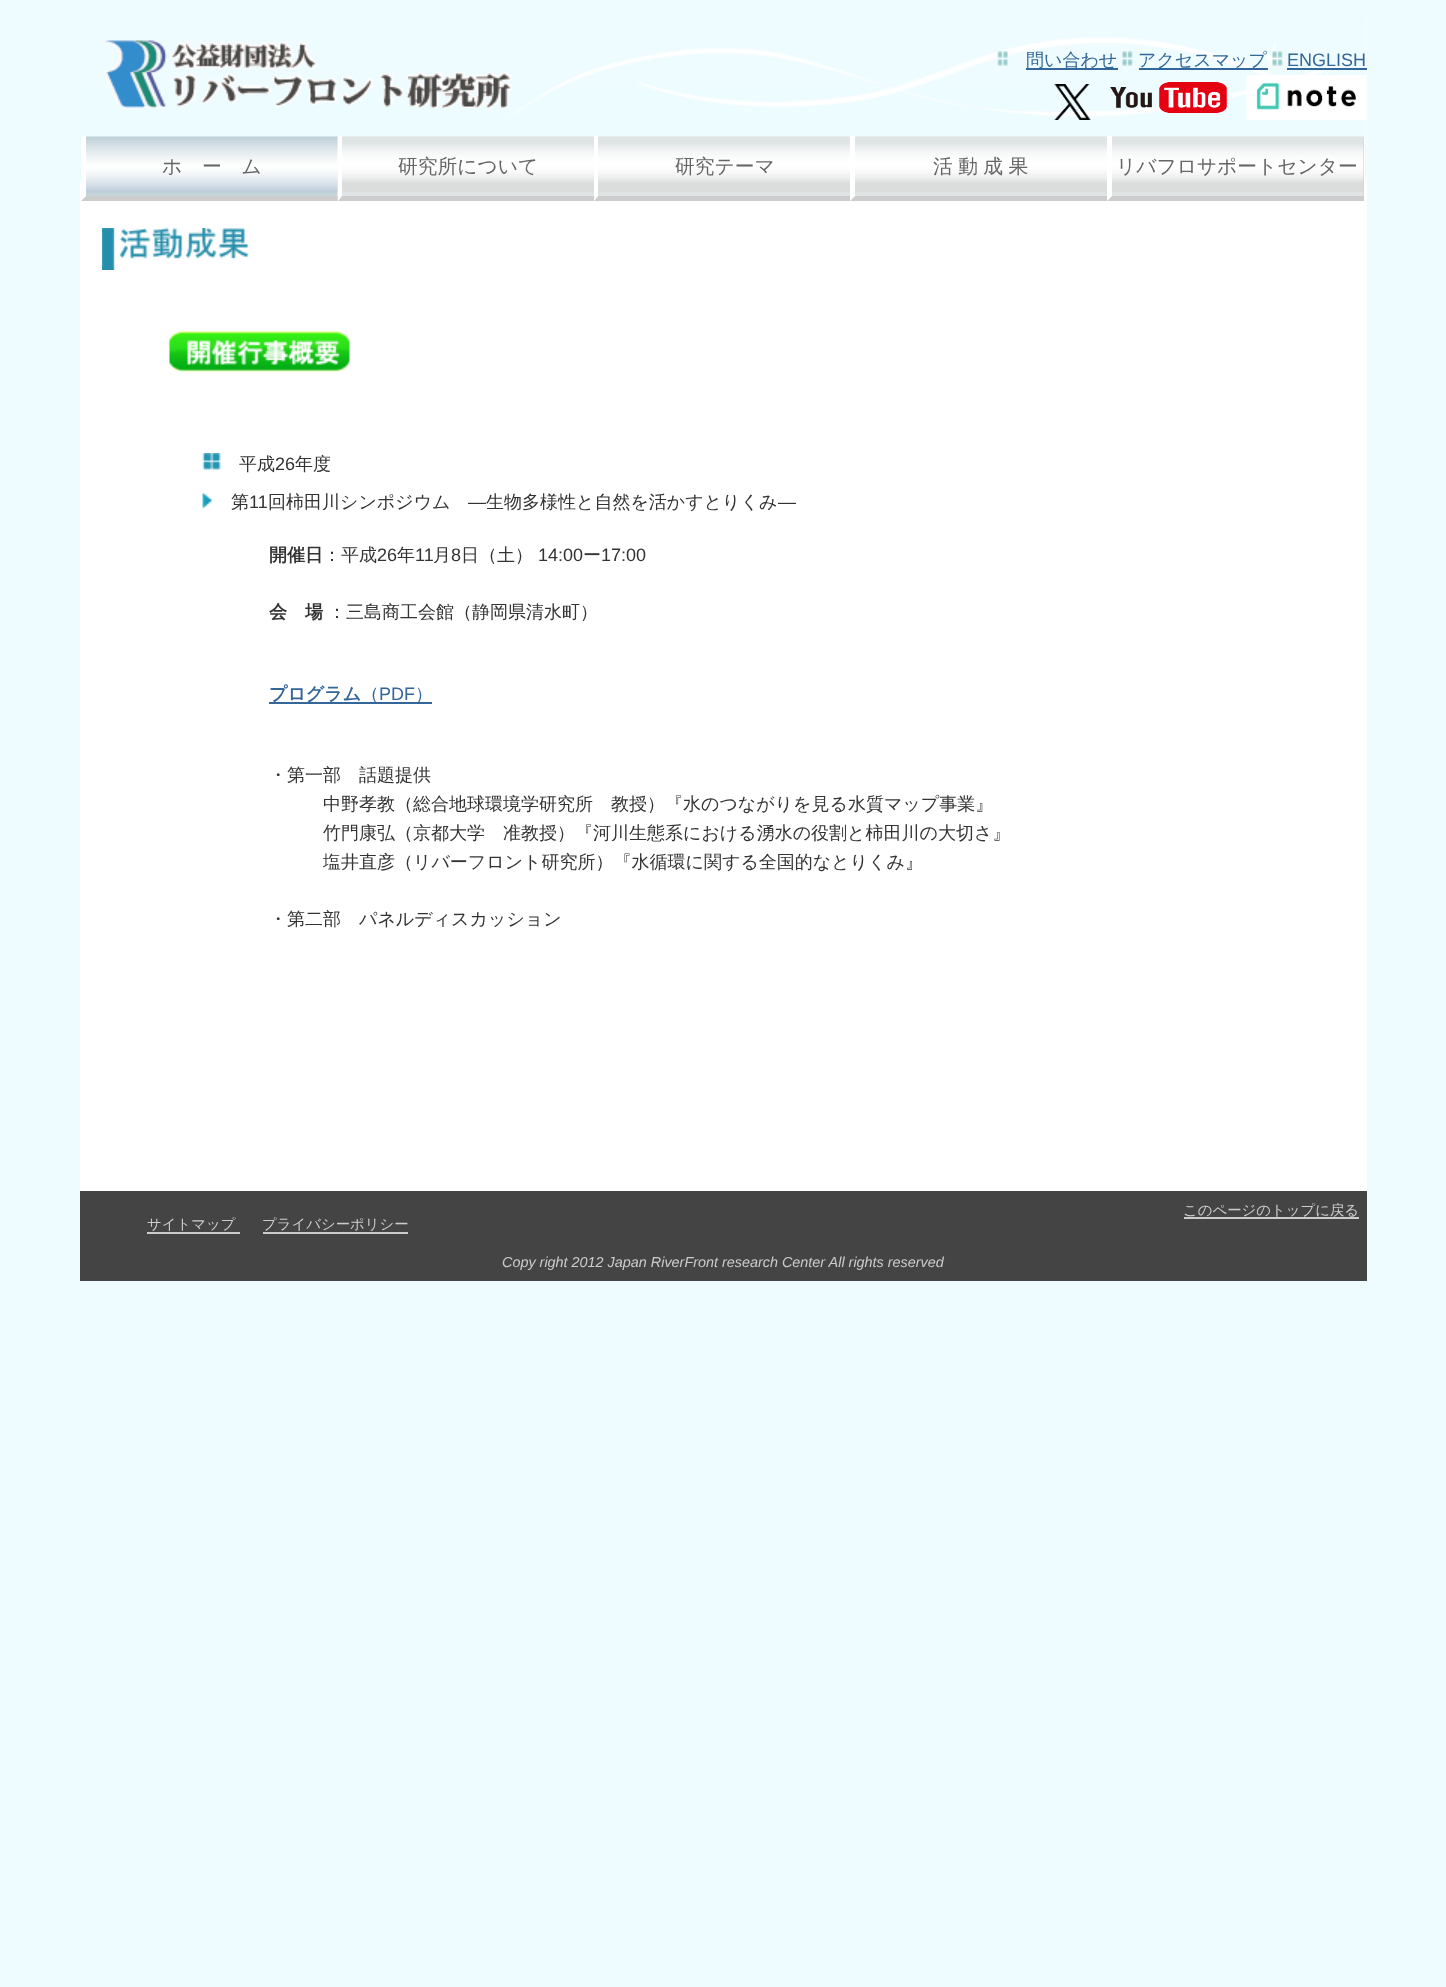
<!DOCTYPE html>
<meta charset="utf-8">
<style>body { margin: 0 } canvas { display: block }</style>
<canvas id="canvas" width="1446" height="1987"></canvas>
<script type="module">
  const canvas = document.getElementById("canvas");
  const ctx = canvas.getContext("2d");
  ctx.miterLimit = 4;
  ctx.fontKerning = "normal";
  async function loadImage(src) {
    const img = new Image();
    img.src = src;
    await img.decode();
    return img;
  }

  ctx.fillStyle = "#eefcff";
  ctx.fillRect(0, 0, 1446, 1987);
  ctx.fillStyle = "#ffffff";
  ctx.fillRect(80, 18, 1287, 1173);
  ctx.drawImage(await loadImage("img1.png"), 80, 18, 1287, 165);
  ctx.drawImage(await loadImage("img2.png"), 102, 40, 410, 68);
  ctx.drawImage(await loadImage("img3.png"), 997, 51, 11, 15);
  ctx.fillStyle = "#336699";
  ctx.fillRect(1026, 68, 92, 2);
  ctx.font = "500 18px WenQuanYi Zen Hei";
  ctx.fillText("問い合わせ", 1026, 66);
  ctx.drawImage(await loadImage("img4.png"), 1122, 51, 11, 15);
  ctx.fillRect(1139, 68, 129, 2);
  ctx.fillText("アクセスマップ", 1138, 66);
  ctx.drawImage(await loadImage("img5.png"), 1272, 51, 11, 15);
  ctx.font = "18px Liberation Sans";
  ctx.fillText("ENGLISH", 1287, 66);
  ctx.fillRect(1287, 68, 80, 2);
  ctx.drawImage(await loadImage("img6.png"), 1054, 84, 37, 36);
  ctx.drawImage(await loadImage("img7.png"), 1110, 82, 118, 31);
  ctx.drawImage(await loadImage("img8.png"), 1246, 75, 121, 45);
  ctx.fillStyle = "#ffffff";
  ctx.fillRect(337, 137, 1028, 46);
  ctx.drawImage(await loadImage("img9.png"), 81, 136, 257, 65);
  ctx.fillStyle = "#cccccc";
  ctx.beginPath();
  ctx.moveTo(338, 201);
  ctx.lineTo(81, 201);
  ctx.lineTo(86, 196);
  ctx.lineTo(338, 196);
  ctx.closePath();
  ctx.fill();
  ctx.fillStyle = "#ffffff";
  ctx.beginPath();
  ctx.moveTo(81, 201);
  ctx.lineTo(81, 136);
  ctx.lineTo(86, 136);
  ctx.lineTo(86, 196);
  ctx.closePath();
  ctx.fill();
  ctx.font = "500 19.75px WenQuanYi Zen Hei";
  ctx.fillStyle = "#666666";
  ctx.fillText("ホ　ー　ム", 162, 173);
  ctx.drawImage(await loadImage("img10.png"), 337, 136, 257, 65);
  ctx.fillStyle = "#cccccc";
  ctx.beginPath();
  ctx.moveTo(594, 201);
  ctx.lineTo(338, 201);
  ctx.lineTo(342, 196);
  ctx.lineTo(594, 196);
  ctx.closePath();
  ctx.fill();
  ctx.fillStyle = "#ffffff";
  ctx.beginPath();
  ctx.moveTo(338, 201);
  ctx.lineTo(338, 136);
  ctx.lineTo(342, 136);
  ctx.lineTo(342, 196);
  ctx.closePath();
  ctx.fill();
  ctx.fillStyle = "#666666";
  ctx.fillText("研究所について", 398, 173);
  ctx.drawImage(await loadImage("img11.png"), 594, 136, 257, 65);
  ctx.fillStyle = "#cccccc";
  ctx.beginPath();
  ctx.moveTo(850, 201);
  ctx.lineTo(594, 201);
  ctx.lineTo(598, 196);
  ctx.lineTo(850, 196);
  ctx.closePath();
  ctx.fill();
  ctx.fillStyle = "#ffffff";
  ctx.beginPath();
  ctx.moveTo(594, 201);
  ctx.lineTo(594, 136);
  ctx.lineTo(598, 136);
  ctx.lineTo(598, 196);
  ctx.closePath();
  ctx.fill();
  ctx.fillStyle = "#666666";
  ctx.fillText("研究テーマ", 675, 173);
  ctx.drawImage(await loadImage("img12.png"), 850, 136, 257, 65);
  ctx.fillStyle = "#cccccc";
  ctx.beginPath();
  ctx.moveTo(1107, 201);
  ctx.lineTo(850, 201);
  ctx.lineTo(855, 196);
  ctx.lineTo(1107, 196);
  ctx.closePath();
  ctx.fill();
  ctx.fillStyle = "#ffffff";
  ctx.beginPath();
  ctx.moveTo(850, 201);
  ctx.lineTo(850, 136);
  ctx.lineTo(855, 136);
  ctx.lineTo(855, 196);
  ctx.closePath();
  ctx.fill();
  ctx.wordSpacing = "-0.5px";
  ctx.fillStyle = "#666666";
  ctx.fillText("活 動 成 果", 933, 173);
  ctx.fillStyle = "#cccccc";
  ctx.fillRect(1363, 137, 1, 59);
  ctx.drawImage(await loadImage("img11.png"), 1107, 136, 257, 65);
  ctx.beginPath();
  ctx.moveTo(1364, 201);
  ctx.lineTo(1107, 201);
  ctx.lineTo(1112, 196);
  ctx.lineTo(1364, 196);
  ctx.closePath();
  ctx.fill();
  ctx.fillStyle = "#ffffff";
  ctx.beginPath();
  ctx.moveTo(1107, 201);
  ctx.lineTo(1107, 136);
  ctx.lineTo(1112, 136);
  ctx.lineTo(1112, 196);
  ctx.closePath();
  ctx.fill();
  ctx.wordSpacing = "0px";
  ctx.fillStyle = "#666666";
  ctx.fillText("リバフロサポートセンター", 1116, 173);
  ctx.drawImage(await loadImage("img13.png"), 102, 228, 148, 42);
  ctx.drawImage(await loadImage("img14.png"), 168, 331, 182, 42);
  ctx.drawImage(await loadImage("img15.png"), 202, 453, 19, 17);
  ctx.font = "500 18px WenQuanYi Zen Hei";
  ctx.fillStyle = "#333333";
  ctx.fillText("平成", 239, 470);
  ctx.font = "18px Liberation Sans";
  ctx.fillText("26", 275, 470);
  ctx.font = "500 18px WenQuanYi Zen Hei";
  ctx.fillText("年度", 295, 470);
  ctx.drawImage(await loadImage("img16.png"), 202, 493, 11, 16);
  ctx.fillText("第", 231, 508);
  ctx.font = "18px Liberation Sans";
  ctx.fillText("11", 249, 508);
  ctx.font = "500 18px WenQuanYi Zen Hei";
  ctx.fillText("回柿田川シンポジウム", 268, 508);
  ctx.font = "18px Liberation Sans";
  ctx.fillText("―", 468, 508);
  ctx.font = "500 18px WenQuanYi Zen Hei";
  ctx.fillText("生物多様性と自然を活かすとりくみ", 486, 508);
  ctx.font = "18px Liberation Sans";
  ctx.fillText("―", 778, 508);
  ctx.font = "bold 18px WenQuanYi Zen Hei";
  ctx.fillText("開催日", 269, 561);
  ctx.font = "500 18px WenQuanYi Zen Hei";
  ctx.fillText("：平成", 323, 561);
  ctx.font = "18px Liberation Sans";
  ctx.fillText("26", 377, 561);
  ctx.font = "500 18px WenQuanYi Zen Hei";
  ctx.fillText("年", 397, 561);
  ctx.font = "18px Liberation Sans";
  ctx.fillText("11", 415, 561);
  ctx.font = "500 18px WenQuanYi Zen Hei";
  ctx.fillText("月", 433, 561);
  ctx.font = "18px Liberation Sans";
  ctx.fillText("8", 451, 561);
  ctx.font = "500 18px WenQuanYi Zen Hei";
  ctx.fillText("日（土）", 461, 561);
  ctx.font = "18px Liberation Sans";
  ctx.fillText("14:00", 538, 561);
  ctx.font = "500 18px WenQuanYi Zen Hei";
  ctx.fillText("ー", 583, 561);
  ctx.font = "18px Liberation Sans";
  ctx.fillText("17:00", 601, 561);
  ctx.font = "bold 18px WenQuanYi Zen Hei";
  ctx.fillText("会　場", 269, 618);
  ctx.font = "500 18px WenQuanYi Zen Hei";
  ctx.fillText("：三島商工会館（静岡県清水町）", 328, 618);
  ctx.fillStyle = "#336699";
  ctx.fillRect(269, 702, 163, 2);
  ctx.font = "bold 18px WenQuanYi Zen Hei";
  ctx.fillText("プログラム", 269, 700);
  ctx.font = "500 18px WenQuanYi Zen Hei";
  ctx.fillText("（", 361, 700);
  ctx.font = "18px Liberation Sans";
  ctx.fillText("PDF", 379, 700);
  ctx.font = "500 18px WenQuanYi Zen Hei";
  ctx.fillText("）", 415, 700);
  ctx.fillStyle = "#333333";
  ctx.fillText("・第一部　話題提供", 269, 781);
  ctx.fillText("中野孝教（総合地球環境学研究所　教授）『水のつながりを見る水質マップ事業』", 323, 810);
  ctx.fillText("竹門康弘（京都大学　准教授）『河川生態系における湧水の役割と柿田川の大切さ』", 323, 839);
  ctx.fillText("塩井直彦（リバーフロント研究所）『水循環に関する全国的なとりくみ』", 323, 868);
  ctx.fillText("・第二部　パネルディスカッション", 269, 925);
  ctx.fillStyle = "#444444";
  ctx.fillRect(80, 1191, 1287, 90);
  ctx.font = "500 14.4px WenQuanYi Zen Hei";
  ctx.fillStyle = "#cccccc";
  ctx.fillText("このページのトップに戻る", 1183, 1215);
  ctx.fillRect(1184, 1217, 175, 2);
  ctx.fillText("サイトマップ", 147, 1229);
  ctx.fillRect(147, 1232, 93, 2);
  ctx.fillText("プライバシーポリシー", 262, 1229);
  ctx.fillRect(263, 1232, 145, 2);
  ctx.font = "italic 14.4px Liberation Sans";
  ctx.fillText("Copy right 2012 Japan RiverFront research Center All rights reserved", 502, 1267);
</script>
